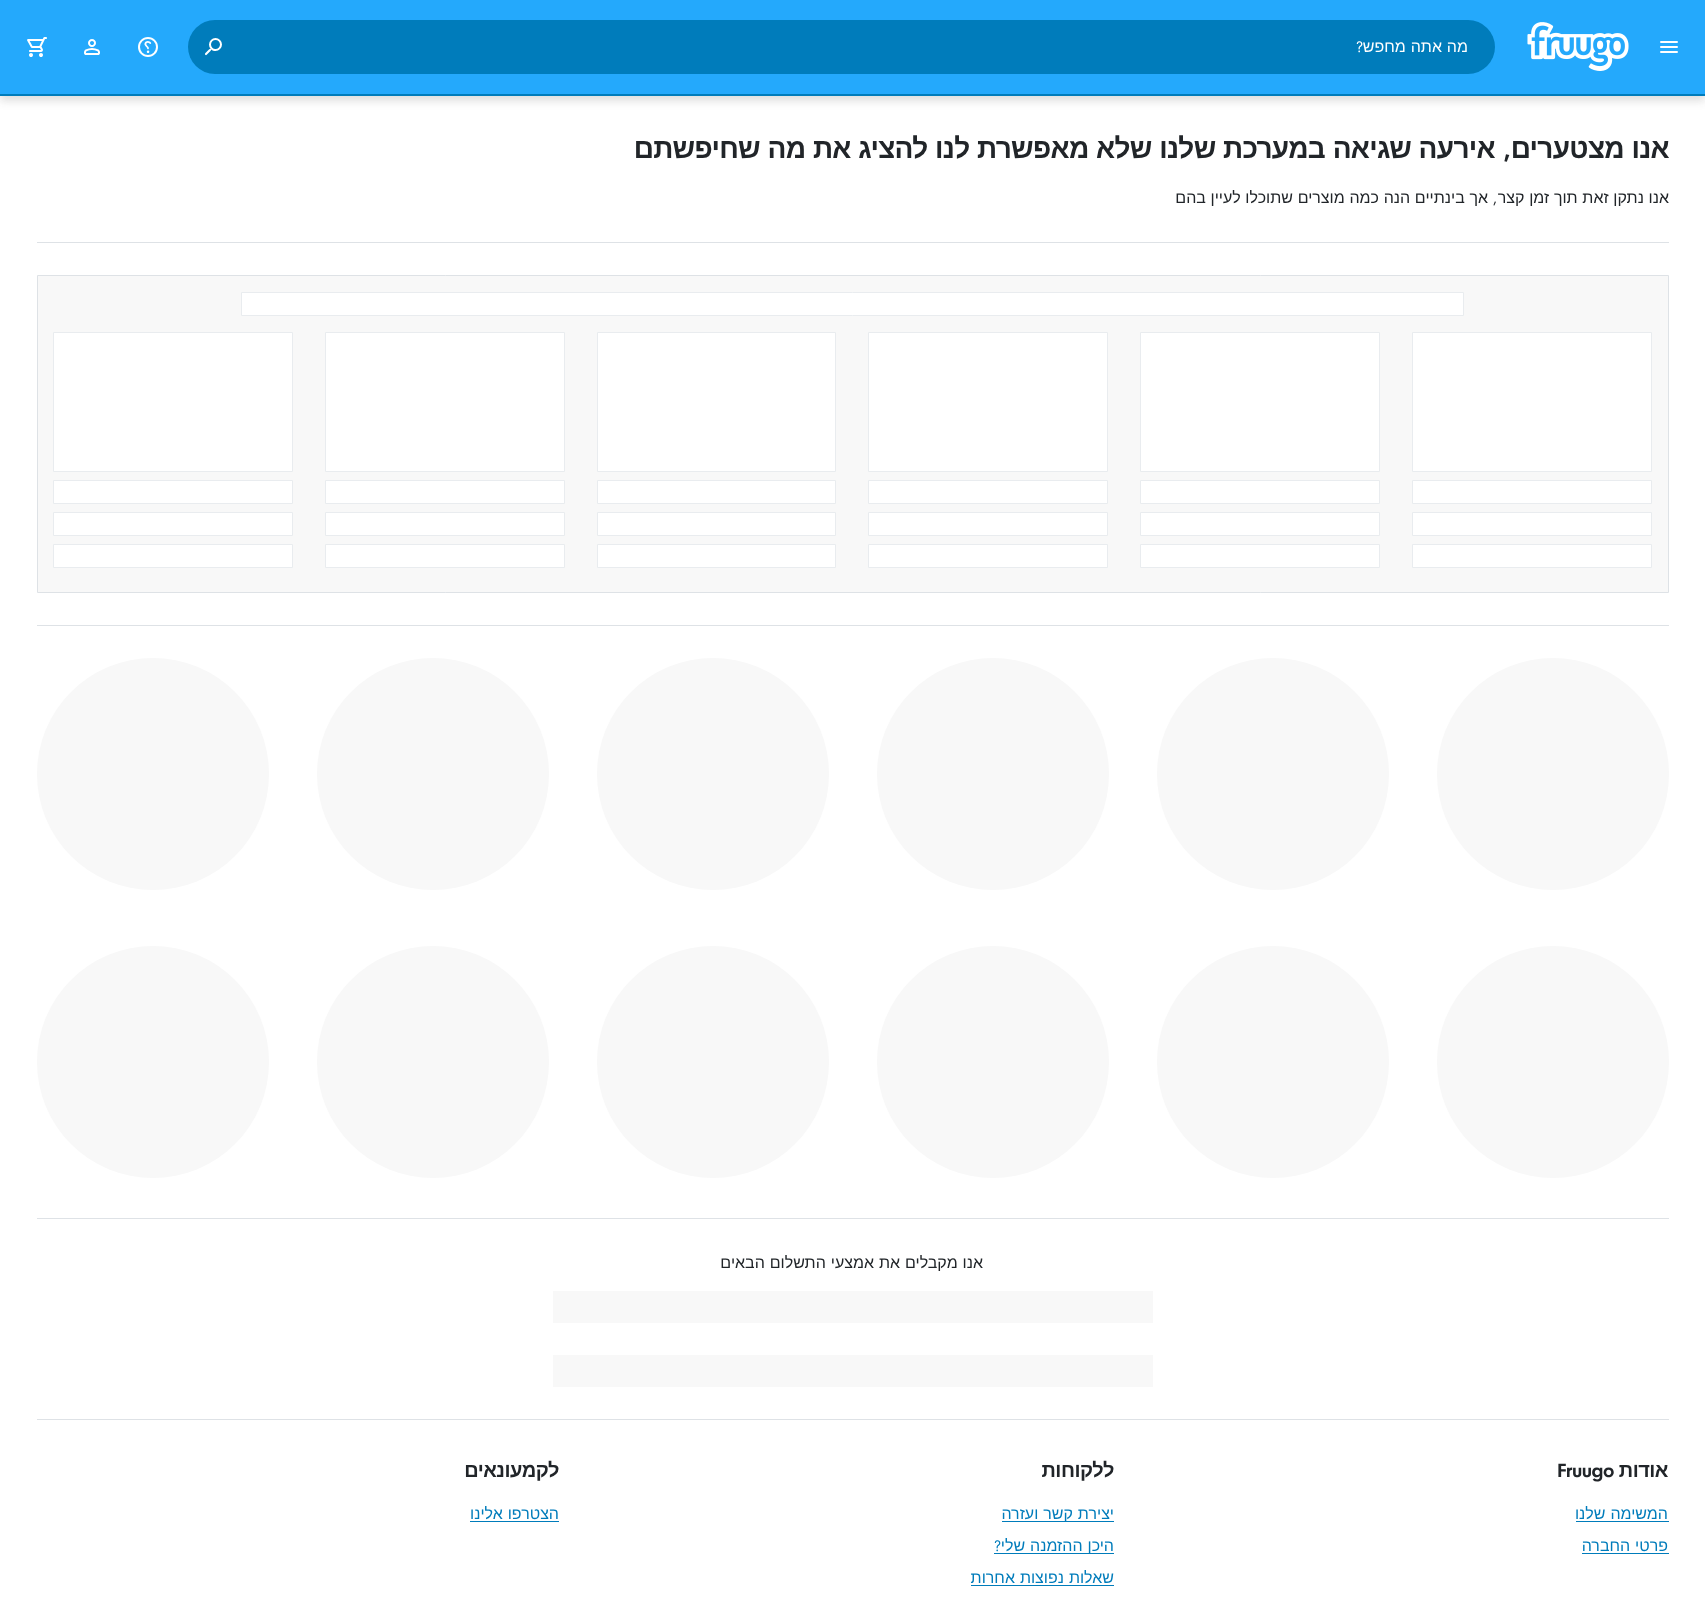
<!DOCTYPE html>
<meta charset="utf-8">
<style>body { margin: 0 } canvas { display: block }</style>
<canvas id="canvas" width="1705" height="1607"></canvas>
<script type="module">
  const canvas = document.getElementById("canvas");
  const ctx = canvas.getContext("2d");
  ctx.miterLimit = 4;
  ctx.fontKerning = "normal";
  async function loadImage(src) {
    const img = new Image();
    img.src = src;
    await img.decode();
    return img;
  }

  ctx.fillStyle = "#ffffff";
  ctx.fillRect(0, 0, 1705, 1607);
  ctx.fillStyle = "rgba(40, 40, 40, 0.15)";
  ctx.filter = "blur(4px)";
  ctx.beginPath();
  ctx.rect(0, 5, 1705, 96);
  ctx.fill();
  ctx.filter = "none";
  ctx.fillStyle = "#24a9fc";
  ctx.fillRect(0, 0, 1705, 94);
  ctx.fillStyle = "#007cbb";
  ctx.fillRect(0, 94, 1705, 2);
  ctx.drawImage(await loadImage("img1.png"), 1660, 41, 18, 12);
  ctx.drawImage(await loadImage("img2.png"), 1527, 22, 102, 49);
  ctx.beginPath();
  ctx.roundRect(188, 20, 1307, 54, 27);
  ctx.fill();
  ctx.wordSpacing = "0.5px";
  ctx.direction = "rtl";
  ctx.font = "16px Liberation Sans";
  ctx.fillStyle = "#ffffff";
  ctx.fillText("מה אתה מחפש", 1468, 52);
  ctx.wordSpacing = "0px";
  ctx.font = "16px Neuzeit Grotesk";
  ctx.fillText("?", 1363, 52);
  ctx.drawImage(await loadImage("img3.png"), 205, 38, 17, 18);
  ctx.drawImage(await loadImage("img4.png"), 138, 37, 20, 20);
  ctx.drawImage(await loadImage("img5.png"), 84, 39, 16, 16);
  ctx.drawImage(await loadImage("img6.png"), 27, 37, 20, 20);
  ctx.letterSpacing = "-0.7px";
  ctx.wordSpacing = "0.5px";
  ctx.font = "bold 28px Liberation Sans";
  ctx.fillStyle = "#212529";
  ctx.fillText("אנו מצטערים", 1669, 158);
  ctx.wordSpacing = "0px";
  ctx.font = "bold 28px Neuzeit Grotesk";
  ctx.fillText(",", 1510, 158);
  ctx.wordSpacing = "0.5px";
  ctx.font = "bold 28px Liberation Sans";
  ctx.fillText("אירעה שגיאה במערכת שלנו שלא מאפשרת לנו להציג את מה שחיפשתם", 1495, 158);
  ctx.letterSpacing = "0px";
  ctx.wordSpacing = "0.25px";
  ctx.font = "16px Liberation Sans";
  ctx.fillText("אנו נתקן זאת תוך זמן קצר", 1669, 203);
  ctx.wordSpacing = "0px";
  ctx.font = "16px Neuzeit Grotesk";
  ctx.fillText(",", 1497, 203);
  ctx.wordSpacing = "0.25px";
  ctx.font = "16px Liberation Sans";
  ctx.fillText("אך בינתיים הנה כמה מוצרים שתוכלו לעיין בהם", 1488, 203);
  ctx.fillStyle = "#dee2e6";
  ctx.fillRect(37, 242, 1632, 1);
  ctx.fillStyle = "#f8f8f8";
  ctx.beginPath();
  ctx.rect(37.5, 275.5, 1631, 317);
  ctx.fill();
  ctx.strokeStyle = "#dee2e6";
  ctx.stroke();
  ctx.fillStyle = "#ffffff";
  ctx.beginPath();
  ctx.rect(241.5, 292.5, 1222, 23);
  ctx.fill();
  ctx.strokeStyle = "#e9ecef";
  ctx.stroke();
  ctx.beginPath();
  ctx.rect(1412.5, 332.5, 239, 139);
  ctx.fill();
  ctx.stroke();
  ctx.beginPath();
  ctx.rect(1412.5, 480.5, 239, 23);
  ctx.fill();
  ctx.stroke();
  ctx.beginPath();
  ctx.rect(1412.5, 512.5, 239, 23);
  ctx.fill();
  ctx.stroke();
  ctx.beginPath();
  ctx.rect(1412.5, 544.5, 239, 23);
  ctx.fill();
  ctx.stroke();
  ctx.beginPath();
  ctx.rect(1140.5, 332.5, 239, 139);
  ctx.fill();
  ctx.stroke();
  ctx.beginPath();
  ctx.rect(1140.5, 480.5, 239, 23);
  ctx.fill();
  ctx.stroke();
  ctx.beginPath();
  ctx.rect(1140.5, 512.5, 239, 23);
  ctx.fill();
  ctx.stroke();
  ctx.beginPath();
  ctx.rect(1140.5, 544.5, 239, 23);
  ctx.fill();
  ctx.stroke();
  ctx.beginPath();
  ctx.rect(868.5, 332.5, 239, 139);
  ctx.fill();
  ctx.stroke();
  ctx.beginPath();
  ctx.rect(868.5, 480.5, 239, 23);
  ctx.fill();
  ctx.stroke();
  ctx.beginPath();
  ctx.rect(868.5, 512.5, 239, 23);
  ctx.fill();
  ctx.stroke();
  ctx.beginPath();
  ctx.rect(868.5, 544.5, 239, 23);
  ctx.fill();
  ctx.stroke();
  ctx.beginPath();
  ctx.rect(597.5, 332.5, 238, 139);
  ctx.fill();
  ctx.stroke();
  ctx.beginPath();
  ctx.rect(597.5, 480.5, 238, 23);
  ctx.fill();
  ctx.stroke();
  ctx.beginPath();
  ctx.rect(597.5, 512.5, 238, 23);
  ctx.fill();
  ctx.stroke();
  ctx.beginPath();
  ctx.rect(597.5, 544.5, 238, 23);
  ctx.fill();
  ctx.stroke();
  ctx.beginPath();
  ctx.rect(325.5, 332.5, 239, 139);
  ctx.fill();
  ctx.stroke();
  ctx.beginPath();
  ctx.rect(325.5, 480.5, 239, 23);
  ctx.fill();
  ctx.stroke();
  ctx.beginPath();
  ctx.rect(325.5, 512.5, 239, 23);
  ctx.fill();
  ctx.stroke();
  ctx.beginPath();
  ctx.rect(325.5, 544.5, 239, 23);
  ctx.fill();
  ctx.stroke();
  ctx.beginPath();
  ctx.rect(53.5, 332.5, 239, 139);
  ctx.fill();
  ctx.stroke();
  ctx.beginPath();
  ctx.rect(53.5, 480.5, 239, 23);
  ctx.fill();
  ctx.stroke();
  ctx.beginPath();
  ctx.rect(53.5, 512.5, 239, 23);
  ctx.fill();
  ctx.stroke();
  ctx.beginPath();
  ctx.rect(53.5, 544.5, 239, 23);
  ctx.fill();
  ctx.stroke();
  ctx.fillStyle = "#dee2e6";
  ctx.fillRect(37, 625, 1632, 1);
  ctx.fillStyle = "#f8f8f8";
  ctx.beginPath();
  ctx.arc(1553, 774, 116, 0, Math.PI * 2);
  ctx.fill();
  ctx.beginPath();
  ctx.arc(1273, 774, 116, 0, Math.PI * 2);
  ctx.fill();
  ctx.beginPath();
  ctx.arc(993, 774, 116, 0, Math.PI * 2);
  ctx.fill();
  ctx.beginPath();
  ctx.arc(713, 774, 116, 0, Math.PI * 2);
  ctx.fill();
  ctx.beginPath();
  ctx.arc(433, 774, 116, 0, Math.PI * 2);
  ctx.fill();
  ctx.beginPath();
  ctx.arc(153, 774, 116, 0, Math.PI * 2);
  ctx.fill();
  ctx.beginPath();
  ctx.arc(1553, 1062, 116, 0, Math.PI * 2);
  ctx.fill();
  ctx.beginPath();
  ctx.arc(1273, 1062, 116, 0, Math.PI * 2);
  ctx.fill();
  ctx.beginPath();
  ctx.arc(993, 1062, 116, 0, Math.PI * 2);
  ctx.fill();
  ctx.beginPath();
  ctx.arc(713, 1062, 116, 0, Math.PI * 2);
  ctx.fill();
  ctx.beginPath();
  ctx.arc(433, 1062, 116, 0, Math.PI * 2);
  ctx.fill();
  ctx.beginPath();
  ctx.arc(153, 1062, 116, 0, Math.PI * 2);
  ctx.fill();
  ctx.fillStyle = "#dee2e6";
  ctx.fillRect(37, 1218, 1632, 1);
  ctx.wordSpacing = "0.5px";
  ctx.fillStyle = "#212529";
  ctx.fillText("אנו מקבלים את אמצעי התשלום הבאים", 983, 1268);
  ctx.fillStyle = "#f8f8f8";
  ctx.fillRect(553, 1291, 600, 32);
  ctx.fillRect(553, 1355, 600, 32);
  ctx.fillStyle = "#dee2e6";
  ctx.fillRect(37, 1419, 1632, 1);
  ctx.letterSpacing = "-0.5px";
  ctx.wordSpacing = "0px";
  ctx.font = "bold 20px Liberation Sans";
  ctx.fillStyle = "#212529";
  ctx.fillText("אודות", 1668, 1477);
  ctx.direction = "ltr";
  ctx.font = "bold 20px Neuzeit Grotesk";
  ctx.fillText("Fruugo", 1557, 1477);
  ctx.letterSpacing = "0px";
  ctx.wordSpacing = "0.5px";
  ctx.direction = "rtl";
  ctx.font = "16px Liberation Sans";
  ctx.fillStyle = "#007cbb";
  ctx.fillText("המשימה שלנו", 1668, 1519);
  ctx.fillRect(1576, 1521, 93, 1);
  ctx.fillText("פרטי החברה", 1668, 1551);
  ctx.fillRect(1582, 1553, 87, 1);
  ctx.letterSpacing = "-0.5px";
  ctx.wordSpacing = "0px";
  ctx.font = "bold 20px Liberation Sans";
  ctx.fillStyle = "#212529";
  ctx.fillText("ללקוחות", 1114, 1477);
  ctx.fillStyle = "#007cbb";
  ctx.fillRect(1002, 1521, 112, 1);
  ctx.letterSpacing = "0px";
  ctx.wordSpacing = "0.5px";
  ctx.font = "16px Liberation Sans";
  ctx.fillText("יצירת קשר ועזרה", 1114, 1519);
  ctx.fillRect(994, 1553, 120, 1);
  ctx.fillText("היכן ההזמנה שלי", 1114, 1551);
  ctx.wordSpacing = "0px";
  ctx.font = "16px Neuzeit Grotesk";
  ctx.fillText("?", 1001, 1551);
  ctx.wordSpacing = "0.5px";
  ctx.font = "16px Liberation Sans";
  ctx.fillText("שאלות נפוצות אחרות", 1114, 1583);
  ctx.fillRect(971, 1585, 143, 1);
  ctx.letterSpacing = "-0.5px";
  ctx.wordSpacing = "0px";
  ctx.font = "bold 20px Liberation Sans";
  ctx.fillStyle = "#212529";
  ctx.fillText("לקמעונאים", 559, 1477);
  ctx.letterSpacing = "0px";
  ctx.wordSpacing = "0.5px";
  ctx.font = "16px Liberation Sans";
  ctx.fillStyle = "#007cbb";
  ctx.fillText("הצטרפו אלינו", 559, 1519);
  ctx.fillRect(470, 1521, 89, 1);
</script>
